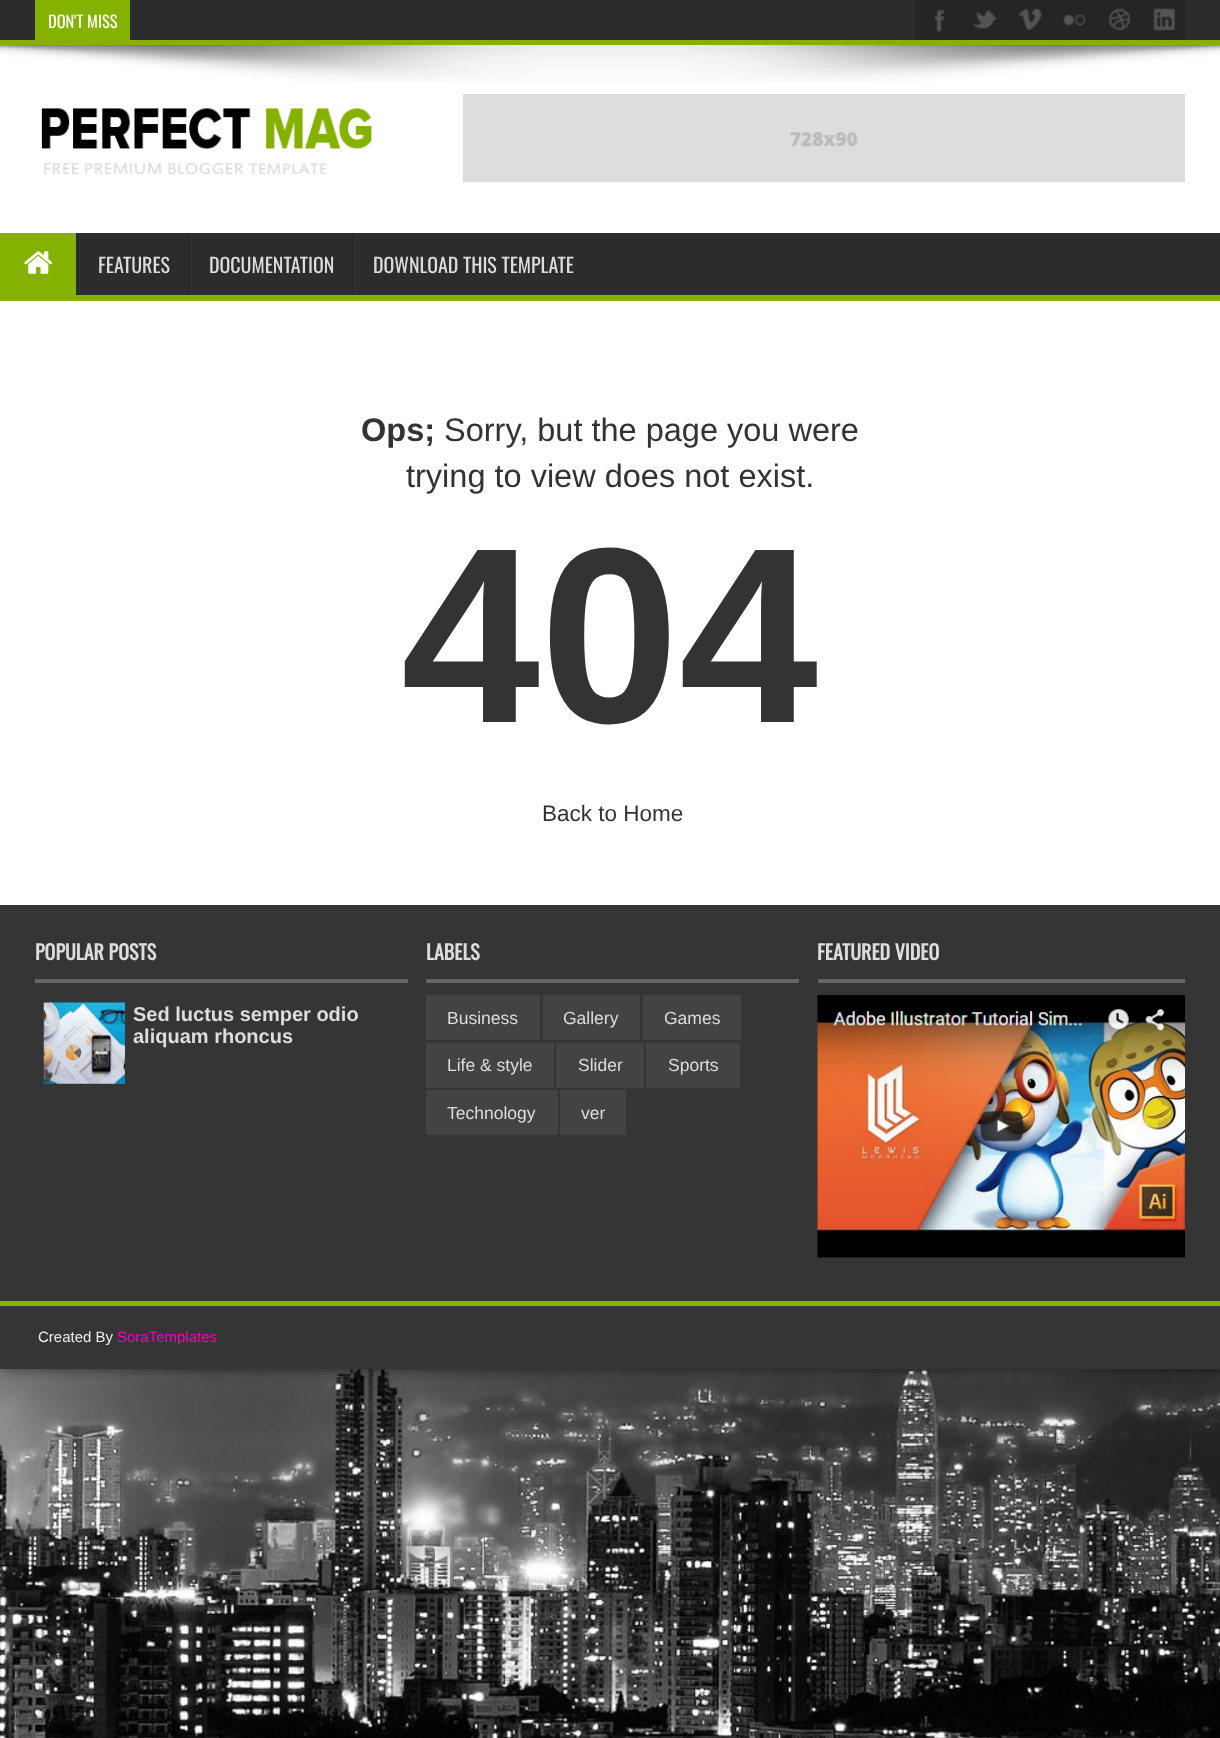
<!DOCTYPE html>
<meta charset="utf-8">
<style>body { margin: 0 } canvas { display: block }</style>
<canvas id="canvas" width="1220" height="1738"></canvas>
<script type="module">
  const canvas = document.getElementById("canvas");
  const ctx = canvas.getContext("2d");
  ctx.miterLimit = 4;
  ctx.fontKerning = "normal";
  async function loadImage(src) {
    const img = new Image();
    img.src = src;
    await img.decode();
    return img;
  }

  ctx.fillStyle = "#ffffff";
  ctx.fillRect(0, 0, 1220, 1738);
  ctx.drawImage(await loadImage("img1.png"), 0, 1369, 1220, 369);
  ctx.fillStyle = "rgba(0, 0, 0, 0.5)";
  ctx.filter = "blur(6px)";
  ctx.beginPath();
  ctx.rect(0, 0, 1220, 1369);
  ctx.fill();
  ctx.filter = "none";
  ctx.fillStyle = "#ffffff";
  ctx.fillRect(0, 45, 1220, 860);
  ctx.fillStyle = "#2c2c2c";
  ctx.fillRect(0, 0, 1220, 40);
  ctx.fillStyle = "#85b200";
  ctx.fillRect(0, 40, 1220, 5);
  ctx.fillRect(35, 0, 95, 40);
  ctx.font = "16.5px Oswald";
  ctx.fillStyle = "#ffffff";
  ctx.fillText("DON'T MISS", 48, 28);
  ctx.fillStyle = "#252525";
  ctx.fillRect(915, 0, 270, 40);
  ctx.drawImage(await loadImage("img2.png"), 935, 10, 9, 22);
  ctx.drawImage(await loadImage("img3.png"), 972, 10, 25, 19);
  ctx.drawImage(await loadImage("img4.png"), 1018, 8, 24, 23);
  ctx.drawImage(await loadImage("img5.png"), 1063, 15, 23, 11);
  ctx.drawImage(await loadImage("img6.png"), 1108, 8, 23, 23);
  ctx.drawImage(await loadImage("img7.png"), 1153, 8, 22, 23);
  ctx.drawImage(await loadImage("img8.png"), 0, 45, 1220, 37);
  ctx.drawImage(await loadImage("img9.png"), 41, 108, 331, 67);
  ctx.drawImage(await loadImage("img10.png"), 462, 94, 723, 89);
  ctx.fillStyle = "#2c2c2c";
  ctx.fillRect(76, 233, 1144, 62);
  ctx.fillStyle = "#85b200";
  ctx.fillRect(0, 295, 1220, 6);
  ctx.fillRect(0, 233, 76, 62);
  ctx.drawImage(await loadImage("img11.png"), 24, 251, 29, 23);
  ctx.fillStyle = "#222222";
  ctx.fillRect(78, 233, 1, 62);
  ctx.fillStyle = "#383838";
  ctx.fillRect(79, 233, 1, 62);
  ctx.font = "20px Oswald";
  ctx.fillStyle = "#dddddd";
  ctx.fillText("FEATURES", 98, 273);
  ctx.fillStyle = "#222222";
  ctx.fillRect(189, 233, 1, 62);
  ctx.fillStyle = "#383838";
  ctx.fillRect(190, 233, 1, 62);
  ctx.fillStyle = "#dddddd";
  ctx.fillText("DOCUMENTATION", 209, 273);
  ctx.fillStyle = "#222222";
  ctx.fillRect(353, 233, 1, 62);
  ctx.fillStyle = "#383838";
  ctx.fillRect(354, 233, 1, 62);
  ctx.fillStyle = "#dddddd";
  ctx.fillText("DOWNLOAD THIS TEMPLATE", 373, 273);
  ctx.font = "bold 32.5px Liberation Sans";
  ctx.fillStyle = "#333333";
  ctx.fillText("Ops;", 361, 441);
  ctx.font = "32.5px Liberation Sans";
  ctx.fillText("Sorry, but the page you were", 444, 441);
  ctx.fillText("trying to view does not exist.", 406, 487);
  ctx.font = "bold 250px Liberation Sans";
  ctx.fillText("404", 401, 722);
  ctx.font = "22.5px Liberation Sans";
  ctx.fillText("Back to Home", 542, 821);
  ctx.fillStyle = "#353535";
  ctx.fillRect(0, 905, 1220, 396);
  ctx.fillStyle = "#666666";
  ctx.fillRect(35, 979, 373, 4);
  ctx.font = "bold 20px Oswald";
  ctx.fillStyle = "#dddddd";
  ctx.fillText("POPULAR POSTS", 35, 960);
  ctx.drawImage(await loadImage("img12.png"), 43, 1002, 82, 82);
  ctx.font = "bold 20px Liberation Sans";
  ctx.fillText("Sed luctus semper odio", 133, 1021);
  ctx.fillText("aliquam rhoncus", 133, 1043);
  ctx.fillStyle = "#666666";
  ctx.fillRect(426, 979, 373, 4);
  ctx.font = "bold 20px Oswald";
  ctx.fillStyle = "#dddddd";
  ctx.fillText("LABELS", 426, 960);
  ctx.fillStyle = "#434343";
  ctx.fillRect(426, 995, 114, 45);
  ctx.font = "17.5px Liberation Sans";
  ctx.fillStyle = "#dddddd";
  ctx.fillText("Business", 447, 1024);
  ctx.fillStyle = "#434343";
  ctx.fillRect(543, 995, 97, 45);
  ctx.fillStyle = "#dddddd";
  ctx.fillText("Gallery", 563, 1024);
  ctx.fillStyle = "#434343";
  ctx.fillRect(643, 995, 98, 45);
  ctx.fillStyle = "#dddddd";
  ctx.fillText("Games", 664, 1024);
  ctx.fillStyle = "#434343";
  ctx.fillRect(426, 1043, 128, 45);
  ctx.fillStyle = "#dddddd";
  ctx.fillText("Life & style", 447, 1071);
  ctx.fillStyle = "#434343";
  ctx.fillRect(556, 1043, 88, 45);
  ctx.fillStyle = "#dddddd";
  ctx.fillText("Slider", 578, 1071);
  ctx.fillStyle = "#434343";
  ctx.fillRect(646, 1043, 94, 45);
  ctx.fillStyle = "#dddddd";
  ctx.fillText("Sports", 668, 1071);
  ctx.fillStyle = "#434343";
  ctx.fillRect(426, 1090, 132, 45);
  ctx.fillStyle = "#dddddd";
  ctx.fillText("Technology", 447, 1119);
  ctx.fillStyle = "#434343";
  ctx.fillRect(560, 1090, 66, 45);
  ctx.fillStyle = "#dddddd";
  ctx.fillText("ver", 581, 1119);
  ctx.fillStyle = "#666666";
  ctx.fillRect(818, 979, 367, 4);
  ctx.font = "bold 20px Oswald";
  ctx.fillStyle = "#dddddd";
  ctx.fillText("FEATURED VIDEO", 817, 960);
  ctx.drawImage(await loadImage("img13.png"), 817, 995, 368, 263);
  ctx.fillStyle = "#353535";
  ctx.fillRect(0, 1306, 1220, 63);
  ctx.fillStyle = "#85b200";
  ctx.fillRect(0, 1301, 1220, 5);
  ctx.font = "15px Liberation Sans";
  ctx.fillStyle = "#eeeeee";
  ctx.fillText("Created By", 38, 1342);
  ctx.fillStyle = "#ff00ba";
  ctx.fillText("SoraTemplates", 117, 1342);
</script>
